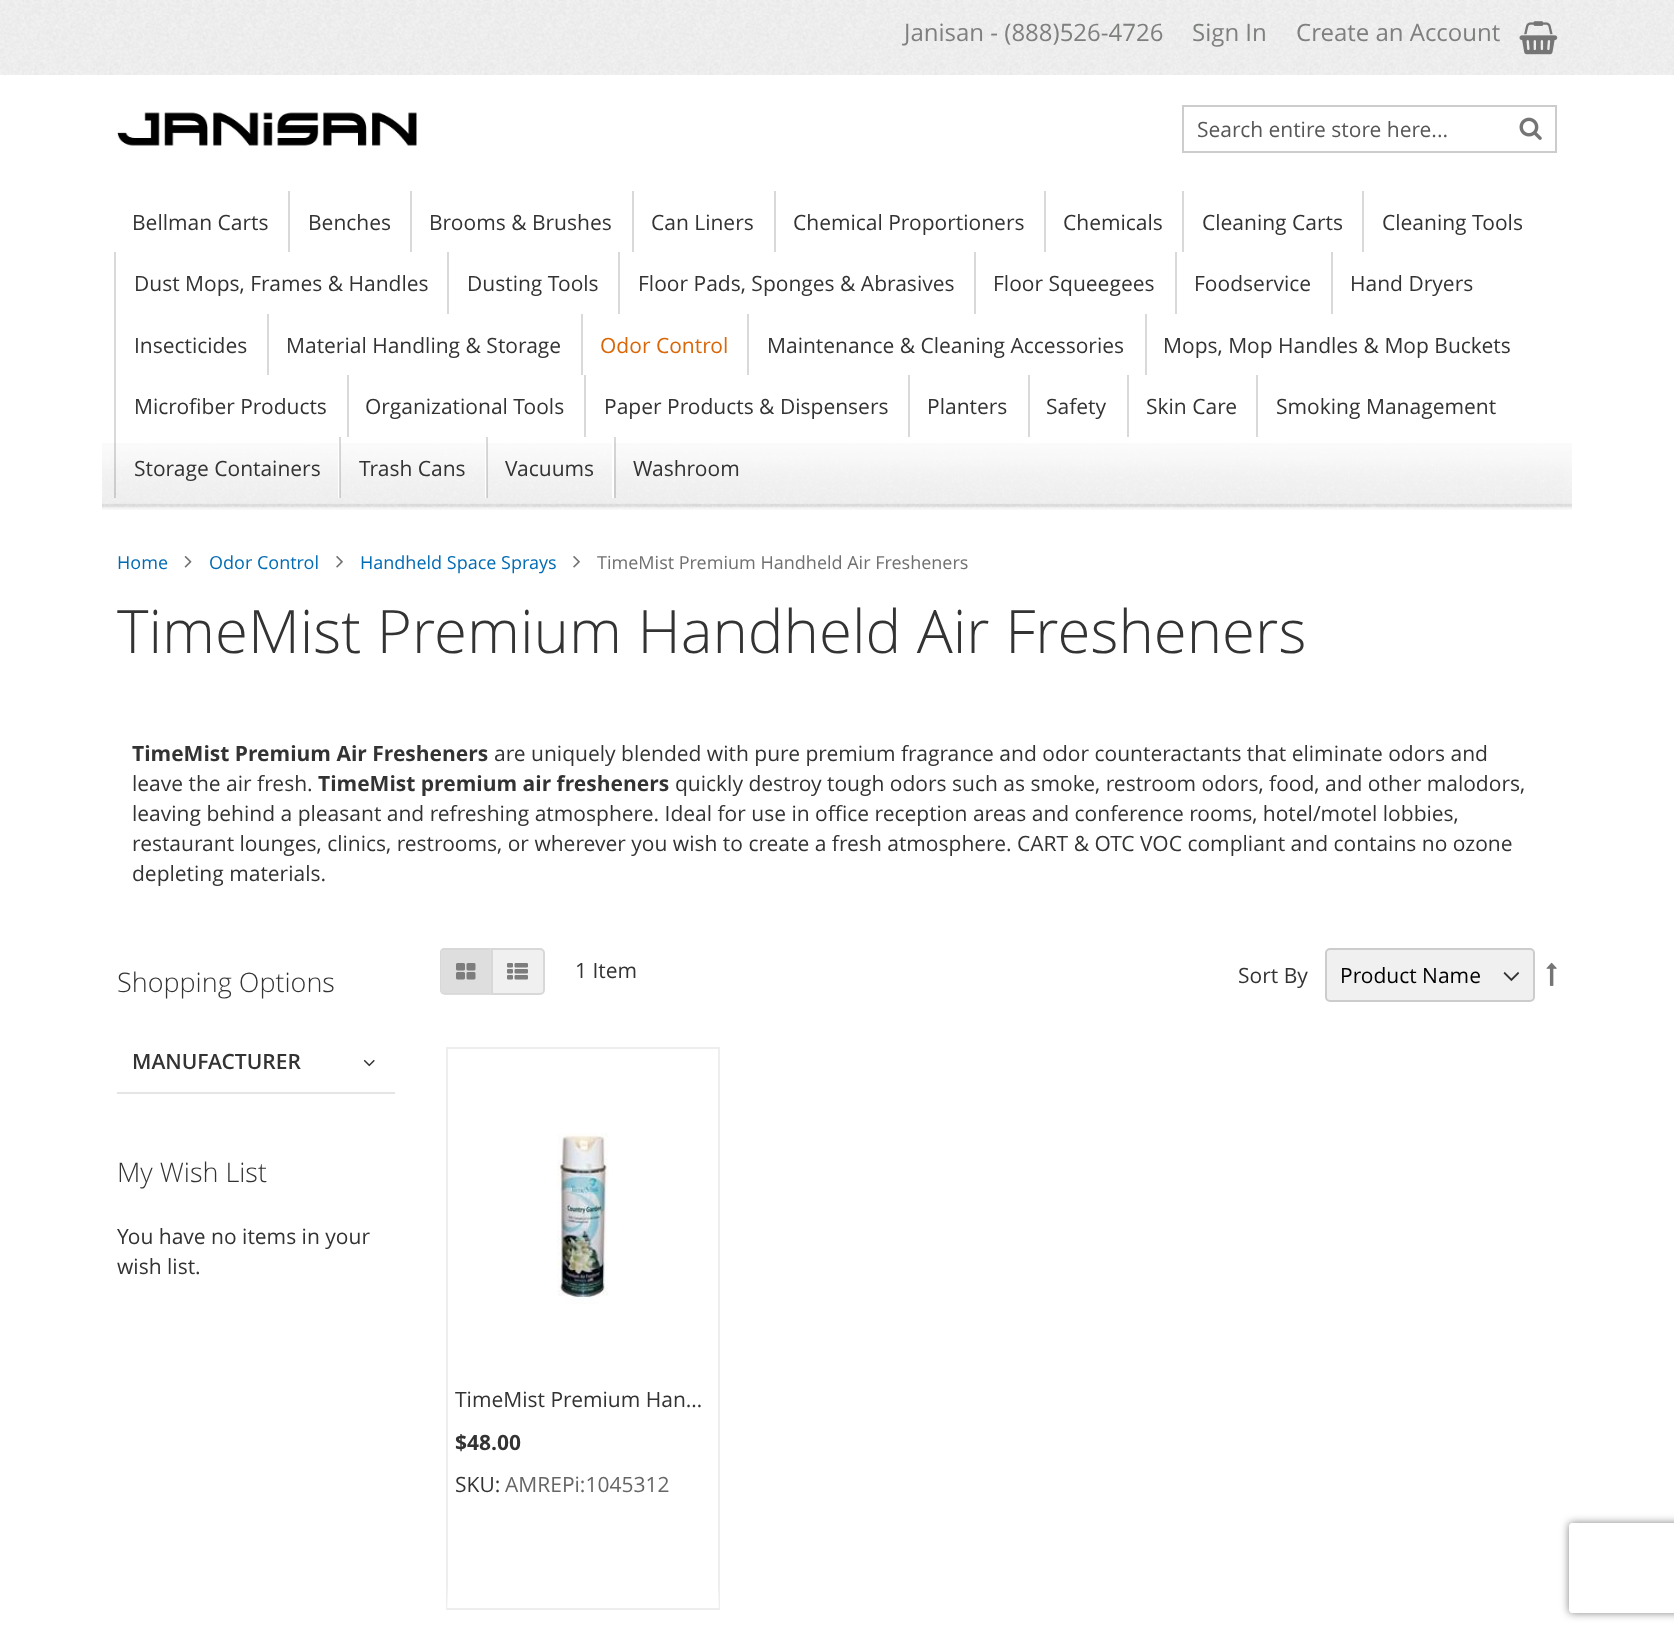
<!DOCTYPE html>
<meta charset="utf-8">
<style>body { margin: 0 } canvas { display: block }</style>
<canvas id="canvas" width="1674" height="1633"></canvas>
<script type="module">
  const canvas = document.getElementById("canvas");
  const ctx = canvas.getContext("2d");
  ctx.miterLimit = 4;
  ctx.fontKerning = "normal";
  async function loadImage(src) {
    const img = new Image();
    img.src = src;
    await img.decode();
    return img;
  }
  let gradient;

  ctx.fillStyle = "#ffffff";
  ctx.fillRect(0, 0, 1674, 1633);
  ctx.fillStyle = "#f2f2f2";
  ctx.fillRect(0, 0, 1674, 75);
  ctx.drawImage(await loadImage("img1.png"), 0, 0, 1674, 75);
  ctx.font = "24px Open Sans";
  ctx.fillStyle = "#7e807e";
  ctx.fillText("Janisan - (888)526-4726", 904, 41);
  ctx.fillText("Sign In", 1192, 41);
  ctx.fillText("Create an Account", 1296, 41);
  ctx.drawImage(await loadImage("img2.png"), 1519, 21, 39, 34);
  ctx.drawImage(await loadImage("img3.png"), 117, 112, 300, 34);
  ctx.strokeStyle = "#cccccc";
  ctx.lineWidth = 2;
  ctx.strokeRect(1183, 106, 373, 46);
  ctx.font = "21px Open Sans";
  ctx.fillStyle = "#575757";
  ctx.fillText("Search entire store here...", 1197, 137);
  ctx.drawImage(await loadImage("img4.png"), 1519, 117, 23, 23);
  ctx.drawImage(await loadImage("img5.png"), 102, 443, 1470, 67);
  ctx.fillStyle = "#333333";
  ctx.fillText("Bellman Carts", 132, 230);
  ctx.fillStyle = "#d9d9d9";
  ctx.fillRect(288, 191, 2, 61);
  ctx.fillStyle = "#333333";
  ctx.fillText("Benches", 308, 230);
  ctx.fillStyle = "#d9d9d9";
  ctx.fillRect(410, 191, 2, 61);
  ctx.fillStyle = "#333333";
  ctx.fillText("Brooms & Brushes", 429, 230);
  ctx.fillStyle = "#d9d9d9";
  ctx.fillRect(632, 191, 2, 61);
  ctx.fillStyle = "#333333";
  ctx.fillText("Can Liners", 651, 230);
  ctx.fillStyle = "#d9d9d9";
  ctx.fillRect(774, 191, 2, 61);
  ctx.fillStyle = "#333333";
  ctx.fillText("Chemical Proportioners", 793, 230);
  ctx.fillStyle = "#d9d9d9";
  ctx.fillRect(1044, 191, 2, 61);
  ctx.fillStyle = "#333333";
  ctx.fillText("Chemicals", 1063, 230);
  ctx.fillStyle = "#d9d9d9";
  ctx.fillRect(1182, 191, 2, 61);
  ctx.fillStyle = "#333333";
  ctx.fillText("Cleaning Carts", 1202, 230);
  ctx.fillStyle = "#d9d9d9";
  ctx.fillRect(1362, 191, 2, 61);
  ctx.fillStyle = "#333333";
  ctx.fillText("Cleaning Tools", 1382, 230);
  ctx.fillStyle = "#d9d9d9";
  ctx.fillRect(114, 252, 2, 185);
  ctx.fillStyle = "#333333";
  ctx.fillText("Dust Mops, Frames & Handles", 134, 291);
  ctx.fillStyle = "#d9d9d9";
  ctx.fillRect(447, 252, 2, 62);
  ctx.fillStyle = "#333333";
  ctx.fillText("Dusting Tools", 467, 291);
  ctx.fillStyle = "#d9d9d9";
  ctx.fillRect(618, 252, 2, 62);
  ctx.fillStyle = "#333333";
  ctx.fillText("Floor Pads, Sponges & Abrasives", 638, 291);
  ctx.fillStyle = "#d9d9d9";
  ctx.fillRect(974, 252, 2, 62);
  ctx.fillStyle = "#333333";
  ctx.fillText("Floor Squeegees", 993, 291);
  ctx.fillStyle = "#d9d9d9";
  ctx.fillRect(1175, 252, 2, 62);
  ctx.fillStyle = "#333333";
  ctx.fillText("Foodservice", 1194, 291);
  ctx.fillStyle = "#d9d9d9";
  ctx.fillRect(1331, 252, 2, 62);
  ctx.fillStyle = "#333333";
  ctx.fillText("Hand Dryers", 1350, 291);
  ctx.fillText("Insecticides", 134, 353);
  ctx.fillStyle = "#d9d9d9";
  ctx.fillRect(267, 314, 2, 61);
  ctx.fillStyle = "#333333";
  ctx.fillText("Material Handling & Storage", 286, 353);
  ctx.fillStyle = "#d9d9d9";
  ctx.fillRect(581, 314, 2, 61);
  ctx.fillStyle = "#d96708";
  ctx.fillText("Odor Control", 600, 353);
  ctx.fillStyle = "#d9d9d9";
  ctx.fillRect(747, 314, 2, 61);
  ctx.fillStyle = "#333333";
  ctx.fillText("Maintenance & Cleaning Accessories", 767, 353);
  ctx.fillStyle = "#d9d9d9";
  ctx.fillRect(1145, 314, 2, 61);
  ctx.fillStyle = "#333333";
  ctx.fillText("Mops, Mop Handles & Mop Buckets", 1163, 353);
  ctx.fillText("Microfiber Products", 134, 414);
  ctx.fillStyle = "#d9d9d9";
  ctx.fillRect(347, 375, 2, 62);
  ctx.fillStyle = "#333333";
  ctx.fillText("Organizational Tools", 365, 414);
  ctx.fillStyle = "#d9d9d9";
  ctx.fillRect(584, 375, 2, 62);
  ctx.fillStyle = "#333333";
  ctx.fillText("Paper Products & Dispensers", 604, 414);
  ctx.fillStyle = "#d9d9d9";
  ctx.fillRect(908, 375, 2, 62);
  ctx.fillStyle = "#333333";
  ctx.fillText("Planters", 927, 414);
  ctx.fillStyle = "#d9d9d9";
  ctx.fillRect(1028, 375, 2, 62);
  ctx.fillStyle = "#333333";
  ctx.fillText("Safety", 1046, 414);
  ctx.fillStyle = "#d9d9d9";
  ctx.fillRect(1127, 375, 2, 62);
  ctx.fillStyle = "#333333";
  ctx.fillText("Skin Care", 1146, 414);
  ctx.fillStyle = "#d9d9d9";
  ctx.fillRect(1256, 375, 2, 62);
  ctx.fillStyle = "#333333";
  ctx.fillText("Smoking Management", 1276, 414);
  ctx.fillStyle = "#ffffff";
  ctx.fillRect(338, 437, 2, 61);
  ctx.fillStyle = "rgba(0, 0, 0, 0.15)";
  ctx.fillRect(114, 437, 2, 61);
  ctx.fillStyle = "#333333";
  ctx.fillText("Storage Containers", 134, 476);
  ctx.fillStyle = "#ffffff";
  ctx.fillRect(485, 437, 2, 61);
  ctx.fillStyle = "rgba(0, 0, 0, 0.15)";
  ctx.fillRect(339, 437, 2, 61);
  ctx.fillStyle = "#333333";
  ctx.fillText("Trash Cans", 359, 476);
  ctx.fillStyle = "#ffffff";
  ctx.fillRect(612, 437, 2, 61);
  ctx.fillStyle = "rgba(0, 0, 0, 0.15)";
  ctx.fillRect(486, 437, 2, 61);
  ctx.fillStyle = "#333333";
  ctx.fillText("Vacuums", 505, 476);
  ctx.fillStyle = "rgba(0, 0, 0, 0.15)";
  ctx.fillRect(614, 437, 2, 61);
  ctx.fillStyle = "#333333";
  ctx.fillText("Washroom", 633, 476);
  ctx.font = "18px Open Sans";
  ctx.fillStyle = "#006bb4";
  ctx.fillText("Home", 117, 569);
  ctx.drawImage(await loadImage("img6.png"), 184, 556, 8, 12);
  ctx.fillText("Odor Control", 209, 569);
  ctx.drawImage(await loadImage("img7.png"), 336, 556, 7, 12);
  ctx.fillText("Handheld Space Sprays", 360, 569);
  ctx.drawImage(await loadImage("img7.png"), 573, 556, 7, 12);
  ctx.fillStyle = "#707070";
  ctx.fillText("TimeMist Premium Handheld Air Fresheners", 597, 569);
  ctx.font = "300 60px Open Sans";
  ctx.fillStyle = "#333333";
  ctx.fillText("TimeMist Premium Handheld Air Fresheners", 117, 653);
  ctx.font = "bold 21px Open Sans";
  ctx.fillText("TimeMist Premium Air Fresheners", 132, 761);
  ctx.font = "21px Open Sans";
  ctx.fillText("are uniquely blended with pure premium fragrance and odor counteractants that eliminate odors and", 494, 761);
  ctx.fillText("leave the air fresh.", 132, 791);
  ctx.font = "bold 21px Open Sans";
  ctx.fillText("TimeMist premium air fresheners", 318, 791);
  ctx.font = "21px Open Sans";
  ctx.fillText("quickly destroy tough odors such as smoke, restroom odors, food, and other malodors,", 675, 791);
  ctx.fillText("leaving behind a pleasant and refreshing atmosphere. Ideal for use in office reception areas and conference rooms, hotel/motel lobbies,", 132, 821);
  ctx.fillText("restaurant lounges, clinics, restrooms, or wherever you wish to create a fresh atmosphere. CART & OTC VOC compliant and contains no ozone", 132, 851);
  ctx.fillText("depleting materials.", 132, 881);
  ctx.font = "300 27px Open Sans";
  ctx.fillText("Shopping Options", 117, 992);
  ctx.fillStyle = "#e5e5e5";
  ctx.fillRect(117, 1092, 278, 2);
  ctx.font = "600 21px Open Sans";
  ctx.fillStyle = "#333333";
  ctx.fillText("MANUFACTURER", 132, 1069);
  ctx.drawImage(await loadImage("img8.png"), 363, 1059, 12, 8);
  ctx.fillStyle = "#dedede";
  ctx.beginPath();
  ctx.roundRect(440, 948, 51, 47, [5, 0, 0, 5]);
  ctx.fill();
  ctx.fillStyle = "#d8d8d8";
  ctx.beginPath();
  ctx.moveTo(444, 948);
  ctx.lineTo(490, 948);
  ctx.lineTo(490, 994);
  ctx.lineTo(444, 994);
  ctx.bezierCurveTo(442, 994, 440, 992, 440, 990);
  ctx.lineTo(440, 952);
  ctx.bezierCurveTo(440, 950, 442, 948, 444, 948);
  ctx.closePath();
  ctx.moveTo(444, 950);
  ctx.lineTo(490, 950);
  ctx.lineTo(490, 993);
  ctx.lineTo(444, 993);
  ctx.bezierCurveTo(442, 993, 441, 992, 441, 990);
  ctx.lineTo(441, 952);
  ctx.bezierCurveTo(441, 951, 442, 950, 444, 950);
  ctx.closePath();
  ctx.fill("evenodd");
  ctx.drawImage(await loadImage("img9.png"), 456, 963, 20, 17);
  ctx.fillStyle = "#f0f0f0";
  ctx.beginPath();
  ctx.roundRect(492, 949, 52, 45, [0, 4, 4, 0]);
  ctx.fill();
  ctx.strokeStyle = "#d8d8d8";
  ctx.stroke();
  ctx.drawImage(await loadImage("img10.png"), 507, 963, 21, 17);
  ctx.font = "21px Open Sans";
  ctx.fillStyle = "#333333";
  ctx.fillText("1 Item", 575, 978);
  ctx.fillText("Sort By", 1238, 983);
  ctx.fillStyle = "#f0f0f0";
  ctx.beginPath();
  ctx.roundRect(1326, 950, 207, 51, 3);
  ctx.fill();
  ctx.drawImage(await loadImage("img11.png"), 1503, 971, 17, 11);
  ctx.beginPath();
  ctx.roundRect(1326, 949, 208, 52, 4);
  ctx.strokeStyle = "#cccccc";
  ctx.stroke();
  ctx.fillStyle = "#000000";
  ctx.fillText("Product Name", 1340, 983);
  ctx.drawImage(await loadImage("img12.png"), 1546, 962, 11, 24);
  ctx.strokeStyle = "#eeeeee";
  ctx.strokeRect(447, 1048, 272, 561);
  ctx.drawImage(await loadImage("img13.png"), 557, 1133, 52, 171);
  ctx.fillStyle = "#333333";
  ctx.fillText("TimeMist Premium Han…", 455, 1407);
  ctx.font = "bold 21px Open Sans";
  ctx.fillText("$48.00", 455, 1450);
  ctx.font = "21px Open Sans";
  ctx.fillText("SKU:", 455, 1492);
  ctx.fillStyle = "#666666";
  ctx.fillText("AMREPi:1045312", 505, 1492);
  gradient = ctx.createLinearGradient(583, 1586, 583, 1608);
  gradient.addColorStop(0, "rgba(255, 255, 255, 0)");
  gradient.addColorStop(1, "rgba(255, 255, 255, 0.8)");
  ctx.fillStyle = gradient;
  ctx.fillRect(447, 1590, 272, 18);
  ctx.font = "300 27px Open Sans";
  ctx.fillStyle = "#333333";
  ctx.fillText("My Wish List", 117, 1182);
  ctx.font = "21px Open Sans";
  ctx.fillText("You have no items in your", 117, 1244);
  ctx.fillText("wish list.", 117, 1274);
  ctx.save();
  ctx.beginPath();
  ctx.moveTo(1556, 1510);
  ctx.lineTo(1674, 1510);
  ctx.lineTo(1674, 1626);
  ctx.lineTo(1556, 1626);
  ctx.closePath();
  ctx.moveTo(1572, 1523);
  ctx.lineTo(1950, 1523);
  ctx.bezierCurveTo(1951.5, 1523, 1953, 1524.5, 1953, 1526);
  ctx.lineTo(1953, 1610);
  ctx.bezierCurveTo(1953, 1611.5, 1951.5, 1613, 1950, 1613);
  ctx.lineTo(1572, 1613);
  ctx.bezierCurveTo(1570.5, 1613, 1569, 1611.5, 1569, 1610);
  ctx.lineTo(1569, 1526);
  ctx.bezierCurveTo(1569, 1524.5, 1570.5, 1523, 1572, 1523);
  ctx.closePath();
  ctx.clip("evenodd");
  ctx.fillStyle = "#808080";
  ctx.filter = "blur(4px)";
  ctx.beginPath();
  ctx.roundRect(1569, 1523, 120, 90, 3);
  ctx.fill();
  ctx.filter = "none";
  ctx.restore();
</script>
